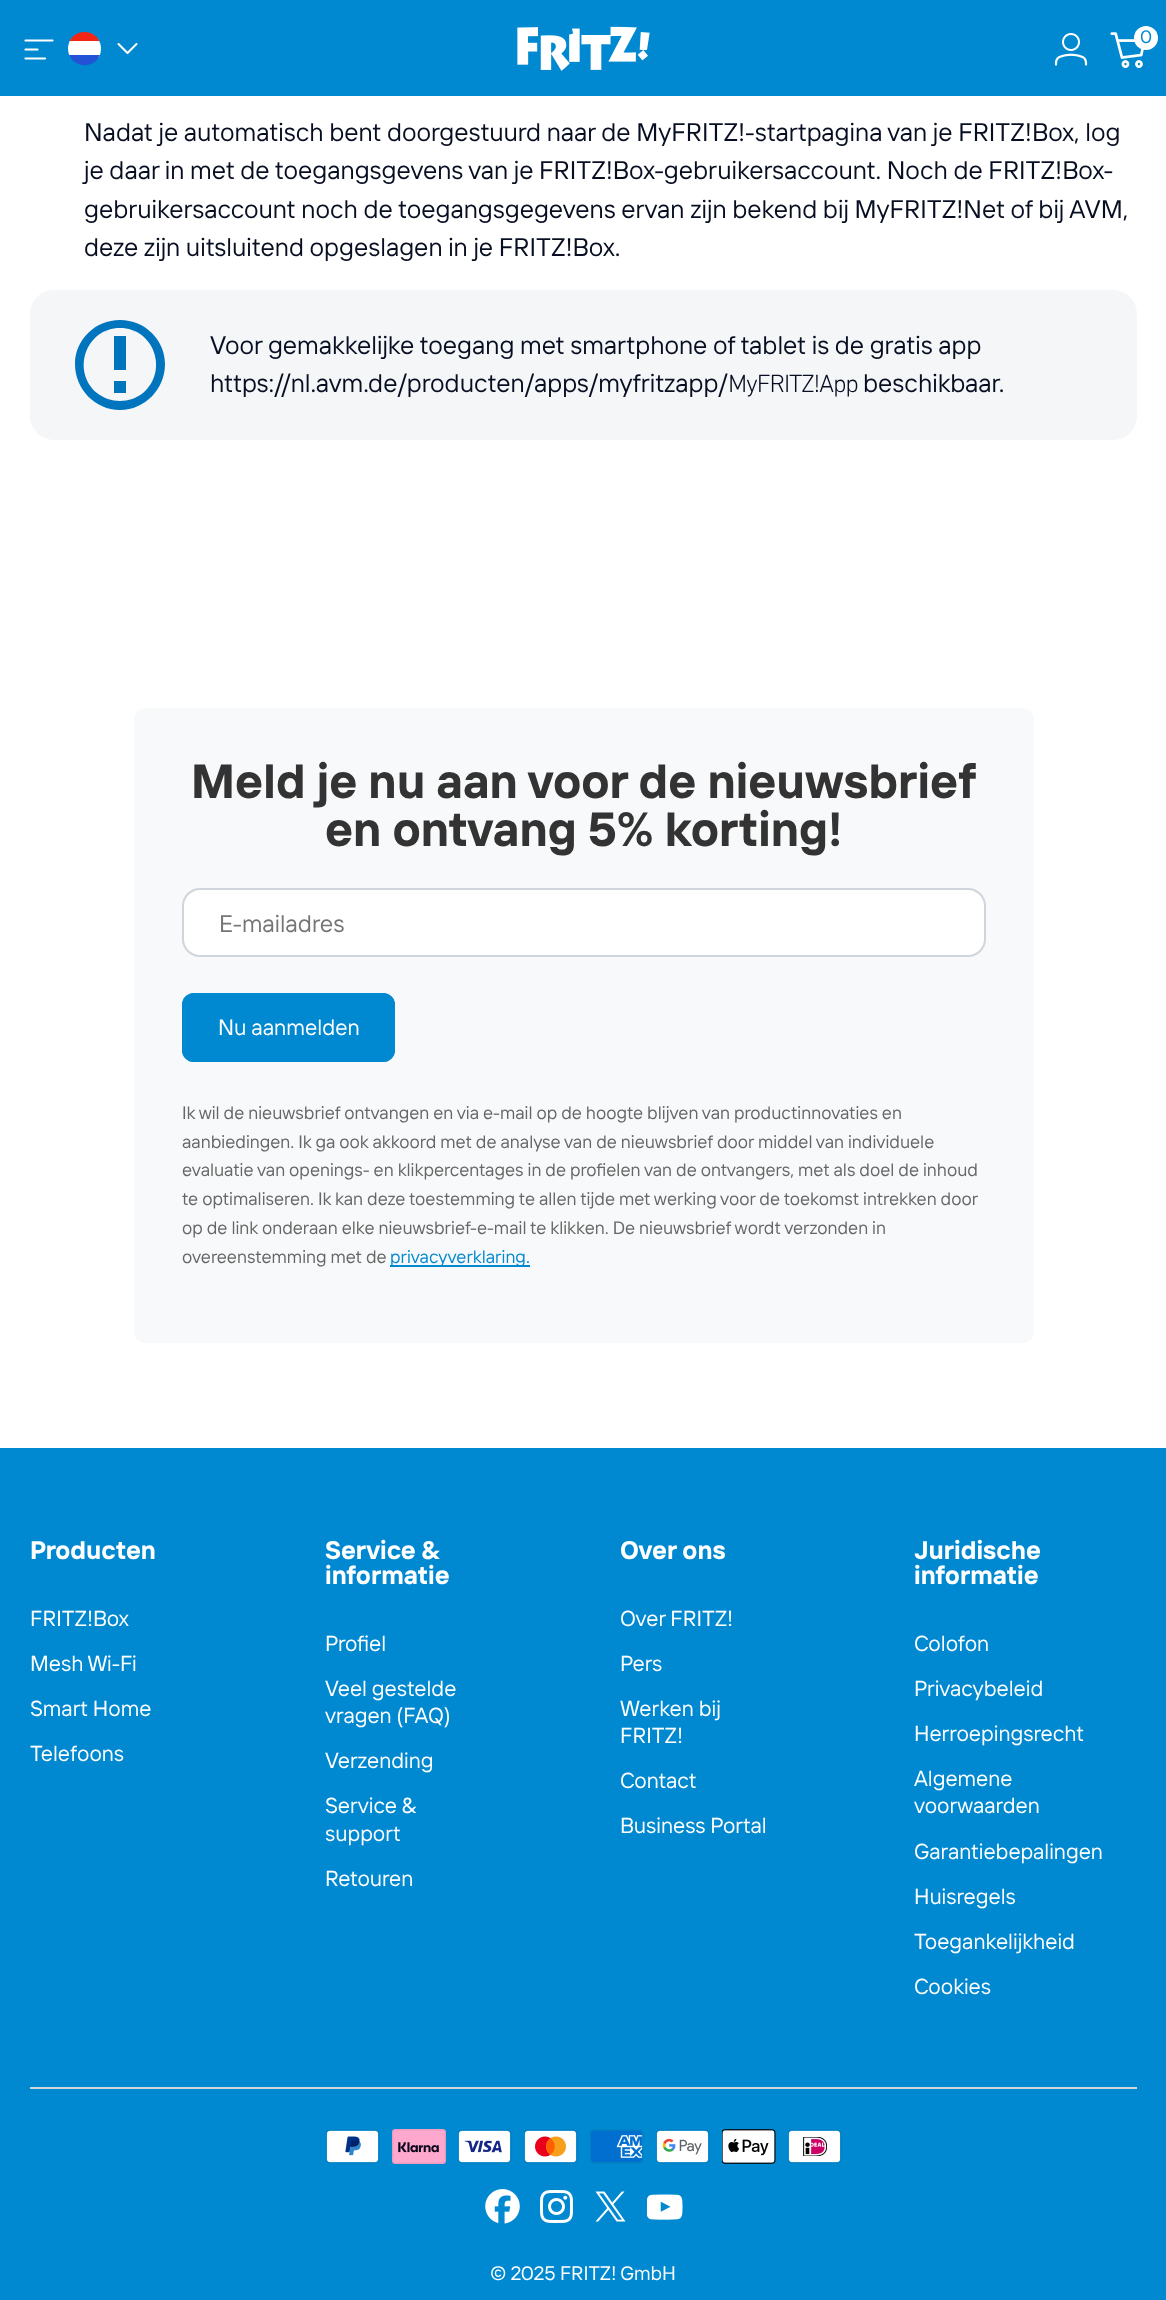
<!DOCTYPE html>
<meta charset="utf-8">
<style>body { margin: 0 } canvas { display: block }</style>
<canvas id="canvas" width="1166" height="2300"></canvas>
<script type="module">
  const canvas = document.getElementById("canvas");
  const ctx = canvas.getContext("2d");
  ctx.miterLimit = 4;
  ctx.fontKerning = "normal";
  async function loadImage(src) {
    const img = new Image();
    img.src = src;
    await img.decode();
    return img;
  }

  ctx.fillStyle = "#ffffff";
  ctx.fillRect(0, 0, 1166, 2300);
  ctx.fillStyle = "#0089d1";
  ctx.fillRect(0, 0, 1166, 96);
  ctx.beginPath();
  ctx.moveTo(25.5, 40.5);
  ctx.lineTo(52.5, 40.5);
  ctx.moveTo(25.5, 49.5);
  ctx.lineTo(37.5, 49.5);
  ctx.moveTo(25.5, 58.5);
  ctx.lineTo(45, 58.5);
  ctx.strokeStyle = "#ffffff";
  ctx.lineWidth = 2.2;
  ctx.lineCap = "round";
  ctx.stroke();
  ctx.fillStyle = "#ffffff";
  ctx.beginPath();
  ctx.moveTo(101, 48.5);
  ctx.bezierCurveTo(101, 52, 100, 55.5, 98.5, 58);
  ctx.lineTo(71, 58);
  ctx.bezierCurveTo(67, 52.5, 67, 44.5, 71, 39);
  ctx.lineTo(98, 39);
  ctx.bezierCurveTo(100, 42, 101, 45, 101, 48.5);
  ctx.closePath();
  ctx.fill();
  ctx.fillStyle = "#2252d5";
  ctx.beginPath();
  ctx.moveTo(100, 55);
  ctx.lineTo(69, 55);
  ctx.bezierCurveTo(75, 68.5, 94.5, 68.5, 100, 55);
  ctx.closePath();
  ctx.fill();
  ctx.fillStyle = "#f32614";
  ctx.beginPath();
  ctx.moveTo(99.5, 41);
  ctx.lineTo(69.5, 41);
  ctx.bezierCurveTo(76, 29, 93, 29, 99.5, 41);
  ctx.closePath();
  ctx.fill();
  ctx.beginPath();
  ctx.moveTo(118.5, 44);
  ctx.lineTo(127.5, 53);
  ctx.lineTo(136.5, 44);
  ctx.lineWidth = 2.1;
  ctx.lineJoin = "round";
  ctx.stroke();
  ctx.drawImage(await loadImage("img1.png"), 517, 26, 133, 45);
  ctx.drawImage(await loadImage("img2.png"), 1054, 33, 34, 33);
  ctx.drawImage(await loadImage("img3.png"), 1110, 32, 34, 36);
  ctx.fillStyle = "#ffffff";
  ctx.beginPath();
  ctx.arc(1146, 38, 12, 0, Math.PI * 2);
  ctx.fill();
  ctx.font = "18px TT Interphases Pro";
  ctx.fillStyle = "#0089d1";
  ctx.fillText("0", 1140, 43);
  ctx.font = "25.5px TT Interphases Pro";
  ctx.fillStyle = "#070e21";
  ctx.fillText("Nadat je automatisch bent doorgestuurd naar de MyFRITZ!-startpagina van je FRITZ!Box, log", 84, 141);
  ctx.fillText("je daar in met de toegangsgevens van je FRITZ!Box-gebruikersaccount. Noch de FRITZ!Box-", 84, 179);
  ctx.fillText("gebruikersaccount noch de toegangsgegevens ervan zijn bekend bij MyFRITZ!Net of bij AVM,", 84, 218);
  ctx.fillText("deze zijn uitsluitend opgeslagen in je FRITZ!Box.", 84, 256);
  ctx.fillStyle = "#f4f6f8";
  ctx.beginPath();
  ctx.roundRect(30, 290, 1107, 150, 24);
  ctx.fill();
  ctx.fillStyle = "#0074bd";
  ctx.beginPath();
  ctx.moveTo(120, 328);
  ctx.bezierCurveTo(86, 328, 71, 371, 97, 393);
  ctx.bezierCurveTo(103, 398, 112, 401, 120, 401);
  ctx.bezierCurveTo(128, 401, 137, 398, 143, 393);
  ctx.bezierCurveTo(169, 371, 154, 328, 120, 328);
  ctx.closePath();
  ctx.moveTo(120, 320);
  ctx.bezierCurveTo(145, 320, 165, 340, 165, 364);
  ctx.bezierCurveTo(165, 389, 145, 410, 120, 410);
  ctx.bezierCurveTo(95, 410, 75, 389, 75, 364);
  ctx.bezierCurveTo(75, 340, 95, 320, 120, 320);
  ctx.closePath();
  ctx.moveTo(114, 381);
  ctx.lineTo(126, 381);
  ctx.lineTo(126, 393);
  ctx.lineTo(114, 393);
  ctx.closePath();
  ctx.moveTo(114, 336);
  ctx.lineTo(126, 336);
  ctx.lineTo(126, 370);
  ctx.lineTo(114, 370);
  ctx.closePath();
  ctx.fill();
  ctx.fillStyle = "#070e21";
  ctx.fillText("Voor gemakkelijke toegang met smartphone of tablet is de gratis app", 210, 354);
  ctx.fillText("https://nl.avm.de/producten/apps/myfritzapp/", 210, 392);
  ctx.letterSpacing = "-1.25px";
  ctx.font = "300 25.5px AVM";
  ctx.fillText("MyFRITZ!App", 728, 392);
  ctx.letterSpacing = "0px";
  ctx.font = "25.5px TT Interphases Pro";
  ctx.fillText("beschikbaar.", 863, 392);
  ctx.fillStyle = "#f8f9fa";
  ctx.beginPath();
  ctx.roundRect(134, 708, 900, 635, 12);
  ctx.fill();
  ctx.font = "bold 48px TT Interphases Pro";
  ctx.fillStyle = "#333333";
  ctx.fillText("Meld je nu aan voor de nieuwsbrief", 191, 798);
  ctx.fillText("en ontvang 5% korting!", 325, 846);
  ctx.fillStyle = "#ffffff";
  ctx.beginPath();
  ctx.roundRect(183, 889, 802, 67, 17);
  ctx.fill();
  ctx.strokeStyle = "#d0d5dd";
  ctx.lineWidth = 2;
  ctx.lineJoin = "miter";
  ctx.stroke();
  ctx.font = "24px TT Interphases Pro";
  ctx.fillStyle = "#757575";
  ctx.fillText("E-mailadres", 219, 932);
  ctx.fillStyle = "#0089d1";
  ctx.beginPath();
  ctx.roundRect(182, 993, 213, 69, 12);
  ctx.fill();
  ctx.beginPath();
  ctx.roundRect(183, 994, 211, 67, 11);
  ctx.strokeStyle = "#0089d1";
  ctx.stroke();
  ctx.font = "22px TT Interphases Pro";
  ctx.fillStyle = "#ffffff";
  ctx.fillText("Nu aanmelden", 218, 1035);
  ctx.font = "18px TT Interphases Pro";
  ctx.fillStyle = "#666666";
  ctx.fillText("Ik wil de nieuwsbrief ontvangen en via e-mail op de hoogte blijven van productinnovaties en", 182, 1119);
  ctx.fillText("aanbiedingen. Ik ga ook akkoord met de analyse van de nieuwsbrief door middel van individuele", 182, 1148);
  ctx.fillText("evaluatie van openings- en klikpercentages in de profielen van de ontvangers, met als doel de inhoud", 182, 1176);
  ctx.fillText("te optimaliseren. Ik kan deze toestemming te allen tijde met werking voor de toekomst intrekken door", 182, 1205);
  ctx.fillText("op de link onderaan elke nieuwsbrief-e-mail te klikken. De nieuwsbrief wordt verzonden in", 182, 1234);
  ctx.fillText("overeenstemming met de", 182, 1263);
  ctx.fillStyle = "#0089d1";
  ctx.fillRect(390, 1265, 140, 2);
  ctx.fillText("privacyverklaring.", 390, 1263);
  ctx.fillRect(0, 1448, 1166, 852);
  ctx.font = "bold 25.5px TT Interphases Pro";
  ctx.fillStyle = "#ffffff";
  ctx.fillText("Producten", 30, 1559);
  ctx.font = "21.75px TT Interphases Pro";
  ctx.fillText("FRITZ!Box", 30, 1626);
  ctx.fillText("Mesh Wi-Fi", 30, 1671);
  ctx.fillText("Smart Home", 30, 1716);
  ctx.fillText("Telefoons", 30, 1761);
  ctx.font = "bold 25.5px TT Interphases Pro";
  ctx.fillText("Service &", 325, 1559);
  ctx.fillText("informatie", 325, 1584);
  ctx.font = "21.75px TT Interphases Pro";
  ctx.fillText("Profiel", 325, 1651);
  ctx.fillText("Veel gestelde", 325, 1696);
  ctx.fillText("vragen (FAQ)", 325, 1723);
  ctx.fillText("Verzending", 325, 1768);
  ctx.fillText("Service &", 325, 1813);
  ctx.fillText("support", 325, 1841);
  ctx.fillText("Retouren", 325, 1886);
  ctx.font = "bold 25.5px TT Interphases Pro";
  ctx.fillText("Over ons", 620, 1559);
  ctx.font = "21.75px TT Interphases Pro";
  ctx.fillText("Over FRITZ!", 620, 1626);
  ctx.fillText("Pers", 620, 1671);
  ctx.fillText("Werken bij", 620, 1716);
  ctx.fillText("FRITZ!", 620, 1743);
  ctx.fillText("Contact", 620, 1788);
  ctx.fillText("Business Portal", 620, 1833);
  ctx.font = "bold 25.5px TT Interphases Pro";
  ctx.fillText("Juridische", 914, 1559);
  ctx.fillText("informatie", 914, 1584);
  ctx.font = "21.75px TT Interphases Pro";
  ctx.fillText("Colofon", 914, 1651);
  ctx.fillText("Privacybeleid", 914, 1696);
  ctx.fillText("Herroepingsrecht", 914, 1741);
  ctx.fillText("Algemene", 914, 1786);
  ctx.fillText("voorwaarden", 914, 1813);
  ctx.fillText("Garantiebepalingen", 914, 1859);
  ctx.fillText("Huisregels", 914, 1904);
  ctx.fillText("Toegankelijkheid", 914, 1949);
  ctx.fillText("Cookies", 914, 1994);
  ctx.fillStyle = "#d6d6d6";
  ctx.fillRect(30, 2087, 1107, 2);
  ctx.drawImage(await loadImage("img4.png"), 326, 2129, 54, 35);
  ctx.drawImage(await loadImage("img5.png"), 392, 2129, 54, 35);
  ctx.drawImage(await loadImage("img6.png"), 458, 2129, 54, 35);
  ctx.drawImage(await loadImage("img7.png"), 524, 2129, 54, 35);
  ctx.drawImage(await loadImage("img8.png"), 590, 2129, 54, 35);
  ctx.drawImage(await loadImage("img9.png"), 656, 2129, 54, 35);
  ctx.drawImage(await loadImage("img10.png"), 722, 2129, 54, 35);
  ctx.drawImage(await loadImage("img11.png"), 788, 2129, 54, 35);
  ctx.drawImage(await loadImage("img12.png"), 485, 2189, 35, 35);
  ctx.drawImage(await loadImage("img13.png"), 540, 2190, 33, 33);
  ctx.drawImage(await loadImage("img14.png"), 595, 2191, 31, 31);
  ctx.drawImage(await loadImage("img15.png"), 647, 2194, 36, 26);
  ctx.font = "19.5px TT Interphases Pro";
  ctx.fillStyle = "#ffffff";
  ctx.fillText("© 2025 FRITZ! GmbH", 490, 2280);
</script>
